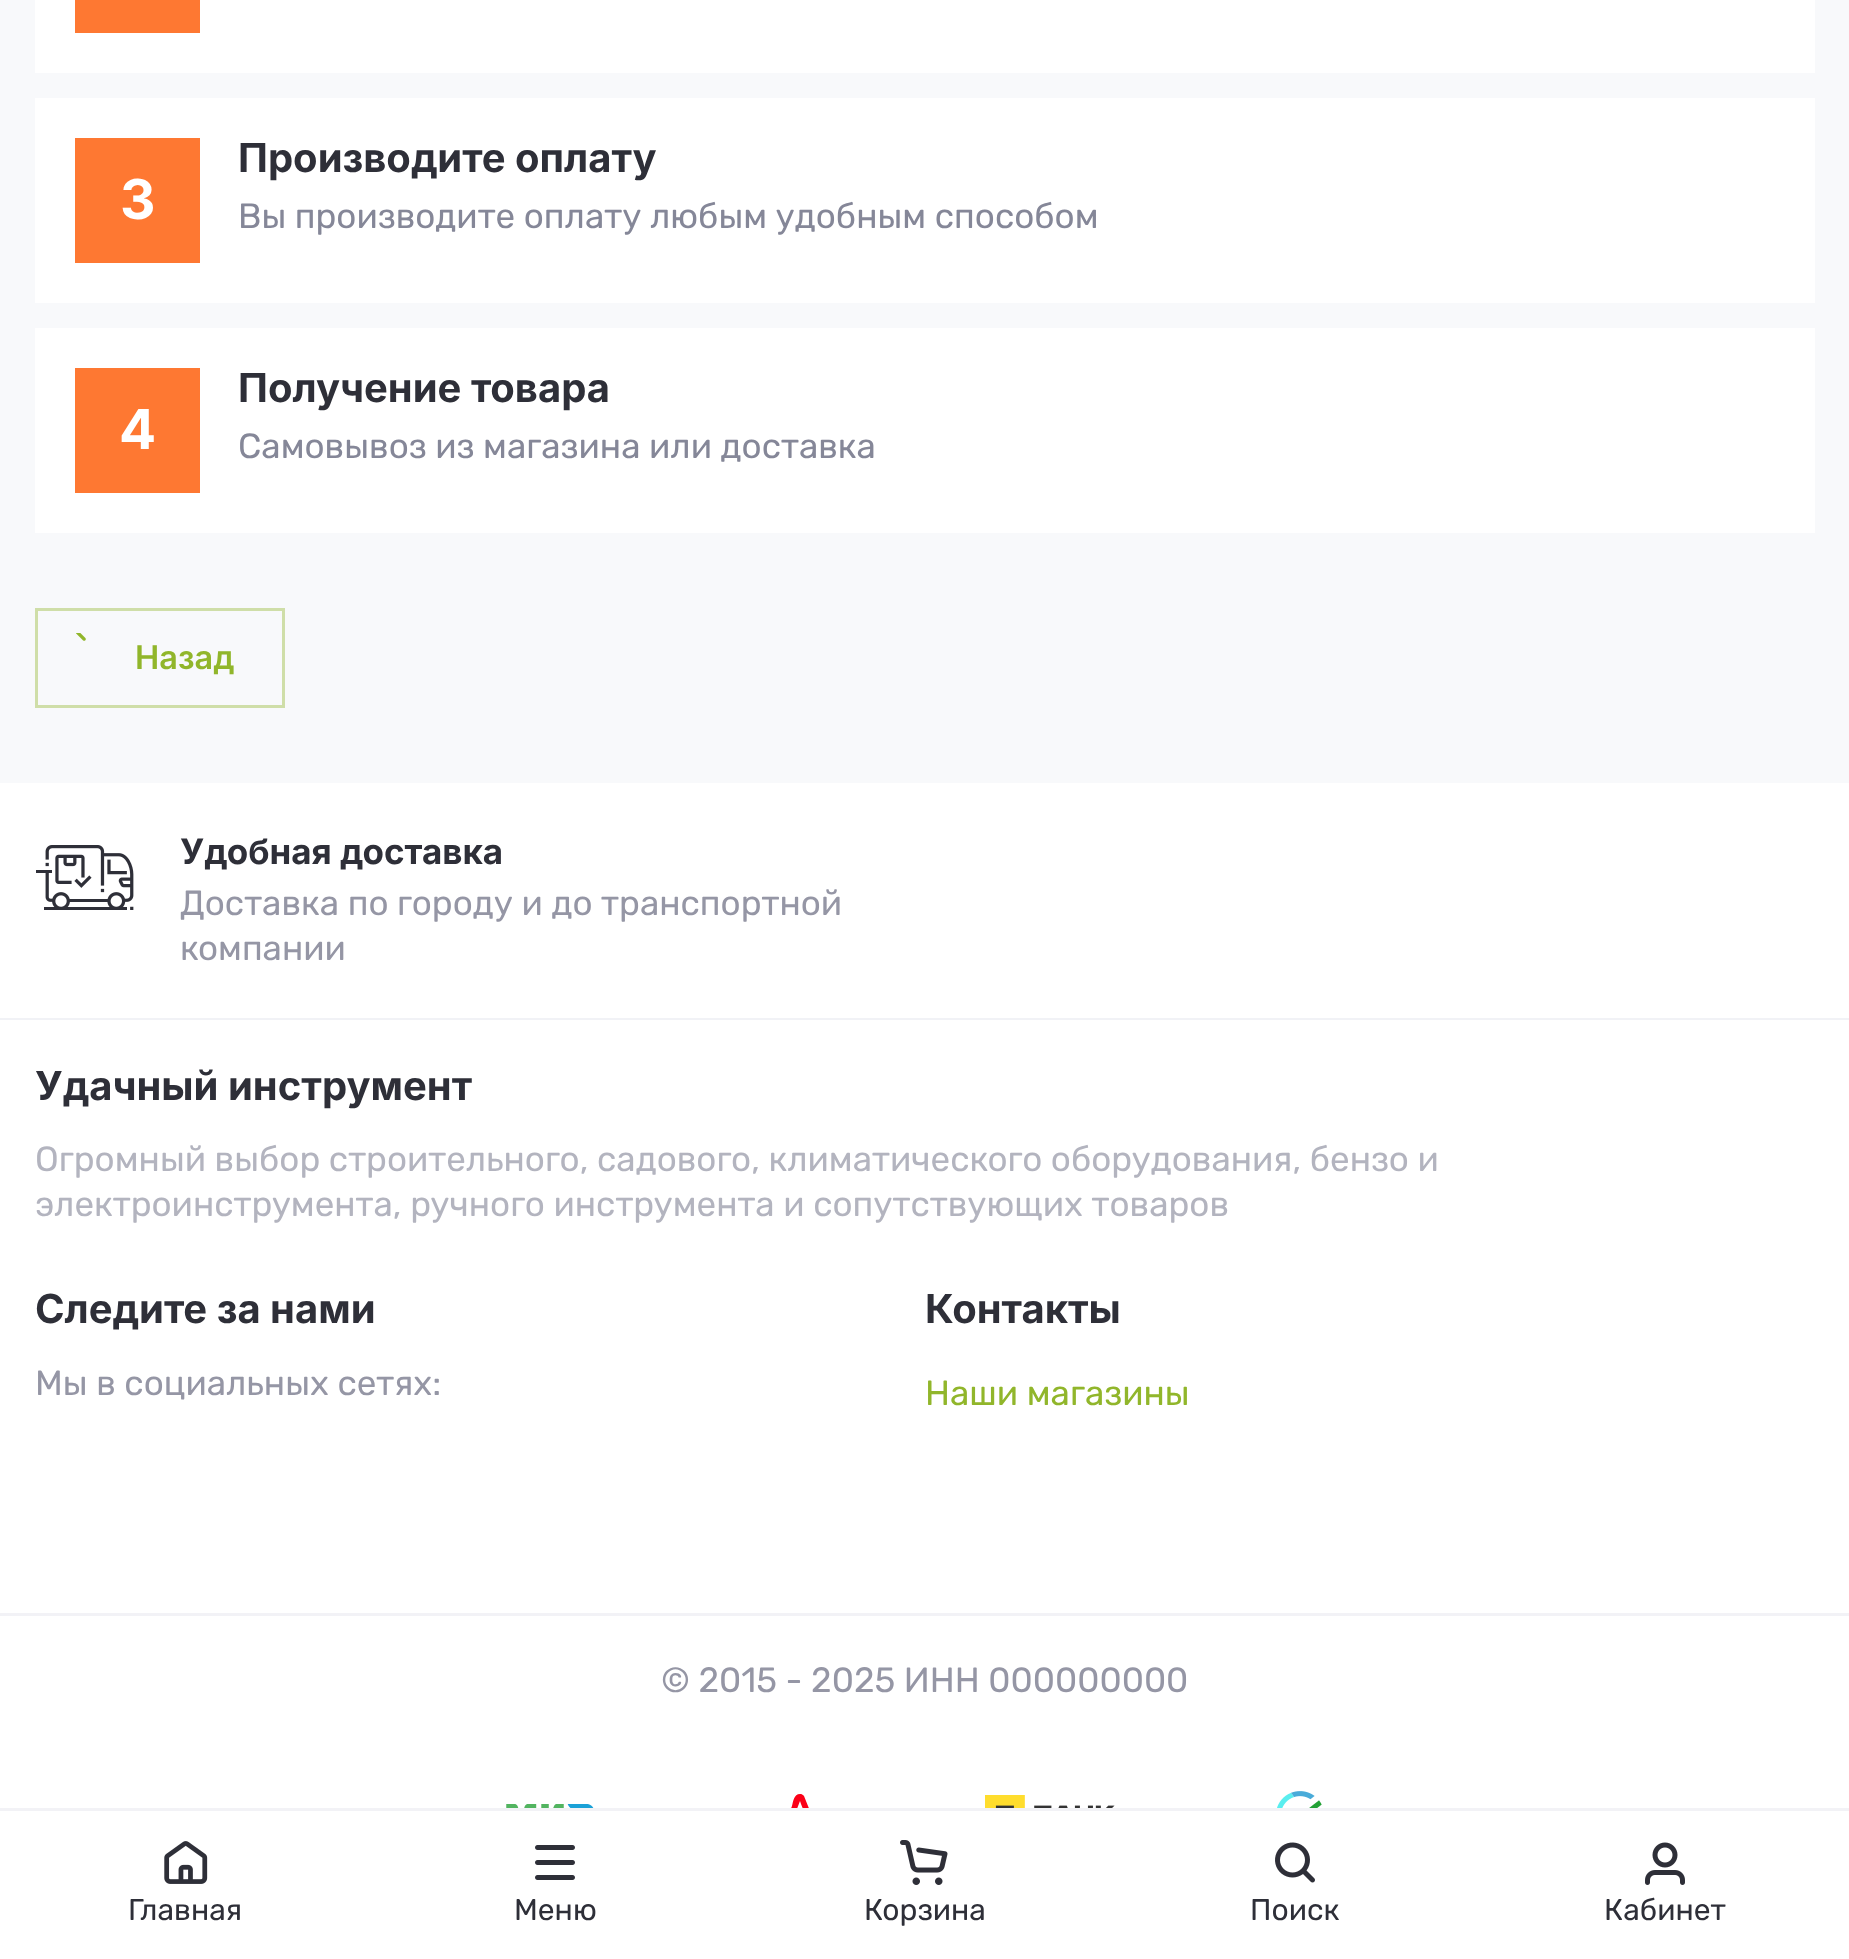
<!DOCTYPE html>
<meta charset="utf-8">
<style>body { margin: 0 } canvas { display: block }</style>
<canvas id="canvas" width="1849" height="1959"></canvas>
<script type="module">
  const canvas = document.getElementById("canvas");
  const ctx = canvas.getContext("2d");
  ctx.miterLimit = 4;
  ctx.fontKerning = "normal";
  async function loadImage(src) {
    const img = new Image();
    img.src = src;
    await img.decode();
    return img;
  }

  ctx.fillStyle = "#f8f9fb";
  ctx.fillRect(0, 0, 1849, 1959);
  ctx.fillStyle = "#ffffff";
  ctx.fillRect(35, 0, 1780, 73);
  ctx.fillStyle = "#fe7832";
  ctx.fillRect(75, 0, 125, 33);
  ctx.fillStyle = "#ffffff";
  ctx.fillRect(35, 98, 1780, 205);
  ctx.fillStyle = "#fe7832";
  ctx.fillRect(75, 138, 125, 125);
  ctx.font = "bold 55px Inter";
  ctx.fillStyle = "#ffffff";
  ctx.fillText("3", 120, 219);
  ctx.font = "bold 40px Inter";
  ctx.fillStyle = "#2e2f38";
  ctx.fillText("Производите оплату", 238, 172);
  ctx.font = "35px Rubik";
  ctx.fillStyle = "#858798";
  ctx.fillText("Вы производите оплату любым удобным способом", 238, 228);
  ctx.fillStyle = "#ffffff";
  ctx.fillRect(35, 328, 1780, 205);
  ctx.fillStyle = "#fe7832";
  ctx.fillRect(75, 368, 125, 125);
  ctx.font = "bold 55px Inter";
  ctx.fillStyle = "#ffffff";
  ctx.fillText("4", 119, 449);
  ctx.font = "bold 40px Inter";
  ctx.fillStyle = "#2e2f38";
  ctx.fillText("Получение товара", 238, 402);
  ctx.font = "35px Rubik";
  ctx.fillStyle = "#858798";
  ctx.fillText("Самовывоз из магазина или доставка", 238, 458);
  ctx.strokeStyle = "#cfdea8";
  ctx.lineWidth = 3;
  ctx.strokeRect(36.5, 609.5, 247, 97);
  ctx.drawImage(await loadImage("img1.png"), 76, 633, 10, 8);
  ctx.font = "600 32.5px Inter";
  ctx.fillStyle = "#91b62b";
  ctx.fillText("Назад", 135, 669);
  ctx.fillStyle = "#ffffff";
  ctx.fillRect(0, 783, 1849, 830);
  ctx.fillStyle = "rgba(210, 211, 224, 0.3)";
  ctx.fillRect(0, 1018, 1849, 2);
  ctx.drawImage(await loadImage("img2.png"), 36, 845, 98, 65);
  ctx.font = "bold 35px Inter";
  ctx.fillStyle = "#2e2f38";
  ctx.fillText("Удобная доставка", 180, 864);
  ctx.font = "35px Rubik";
  ctx.fillStyle = "#9596a5";
  ctx.fillText("Доставка по городу и до транспортной", 180, 915);
  ctx.fillText("компании", 180, 960);
  ctx.font = "bold 40px Inter";
  ctx.fillStyle = "#2e2f38";
  ctx.fillText("Удачный инструмент", 35, 1100);
  ctx.font = "35px Rubik";
  ctx.fillStyle = "#b3b4bf";
  ctx.fillText("Огромный выбор строительного, садового, климатического оборудования, бензо и", 35, 1171);
  ctx.fillText("электроинструмента, ручного инструмента и сопутствующих товаров", 35, 1216);
  ctx.font = "bold 40px Inter";
  ctx.fillStyle = "#2e2f38";
  ctx.fillText("Следите за нами", 35, 1323);
  ctx.font = "35px Rubik";
  ctx.fillStyle = "#9596a5";
  ctx.fillText("Мы в социальных сетях:", 35, 1395);
  ctx.font = "bold 40px Inter";
  ctx.fillStyle = "#2e2f38";
  ctx.fillText("Контакты", 925, 1323);
  ctx.font = "35px Rubik";
  ctx.fillStyle = "#91b62b";
  ctx.fillText("Наши магазины", 925, 1405);
  ctx.fillStyle = "#ffffff";
  ctx.fillRect(0, 1616, 1849, 192);
  ctx.fillStyle = "#f2f2f6";
  ctx.fillRect(0, 1613, 1849, 3);
  ctx.fillStyle = "#9596a5";
  ctx.fillText("© 2015 - 2025 ИНН 000000000", 661, 1692);
  ctx.drawImage(await loadImage("img3.png"), 506, 1804, 88, 4);
  ctx.fillStyle = "#fb0017";
  ctx.beginPath();
  ctx.moveTo(815, 1825);
  ctx.lineTo(809, 1826);
  ctx.lineTo(806, 1819);
  ctx.lineTo(794, 1819);
  ctx.lineTo(791, 1826);
  ctx.lineTo(785, 1824);
  ctx.lineTo(792, 1806);
  ctx.bezierCurveTo(793, 1802, 794, 1793, 801, 1794);
  ctx.bezierCurveTo(802, 1794, 803, 1795, 804, 1796);
  ctx.lineTo(808, 1806);
  ctx.bezierCurveTo(810, 1811, 816, 1824, 815, 1825);
  ctx.closePath();
  ctx.moveTo(801, 1804);
  ctx.lineTo(800, 1801);
  ctx.lineTo(795, 1814);
  ctx.lineTo(805, 1814);
  ctx.closePath();
  ctx.moveTo(785, 1831);
  ctx.lineTo(815, 1831);
  ctx.lineTo(817, 1833);
  ctx.bezierCurveTo(820, 1837, 811, 1836, 805, 1836);
  ctx.lineTo(790, 1836);
  ctx.bezierCurveTo(788, 1836, 783, 1837, 783, 1834);
  ctx.bezierCurveTo(782, 1833, 783, 1831, 785, 1831);
  ctx.closePath();
  ctx.fill("evenodd");
  ctx.drawImage(await loadImage("img4.png"), 985, 1795, 130, 13);
  ctx.drawImage(await loadImage("img5.png"), 1276, 1791, 48, 17);
  ctx.fillStyle = "#ffffff";
  ctx.fillRect(0, 1811, 1849, 148);
  ctx.fillStyle = "#f2f2f6";
  ctx.fillRect(0, 1808, 1849, 3);
  ctx.drawImage(await loadImage("img6.png"), 164, 1841, 44, 43);
  ctx.font = "30px Rubik";
  ctx.fillStyle = "#2e2f38";
  ctx.fillText("Главная", 128, 1920);
  ctx.drawImage(await loadImage("img7.png"), 535, 1845, 40, 35);
  ctx.fillText("Меню", 514, 1920);
  ctx.drawImage(await loadImage("img8.png"), 900, 1840, 48, 45);
  ctx.fillText("Корзина", 864, 1920);
  ctx.drawImage(await loadImage("img9.png"), 1275, 1842, 40, 41);
  ctx.fillText("Поиск", 1250, 1920);
  ctx.drawImage(await loadImage("img10.png"), 1645, 1842, 40, 43);
  ctx.fillText("Кабинет", 1604, 1920);
</script>
